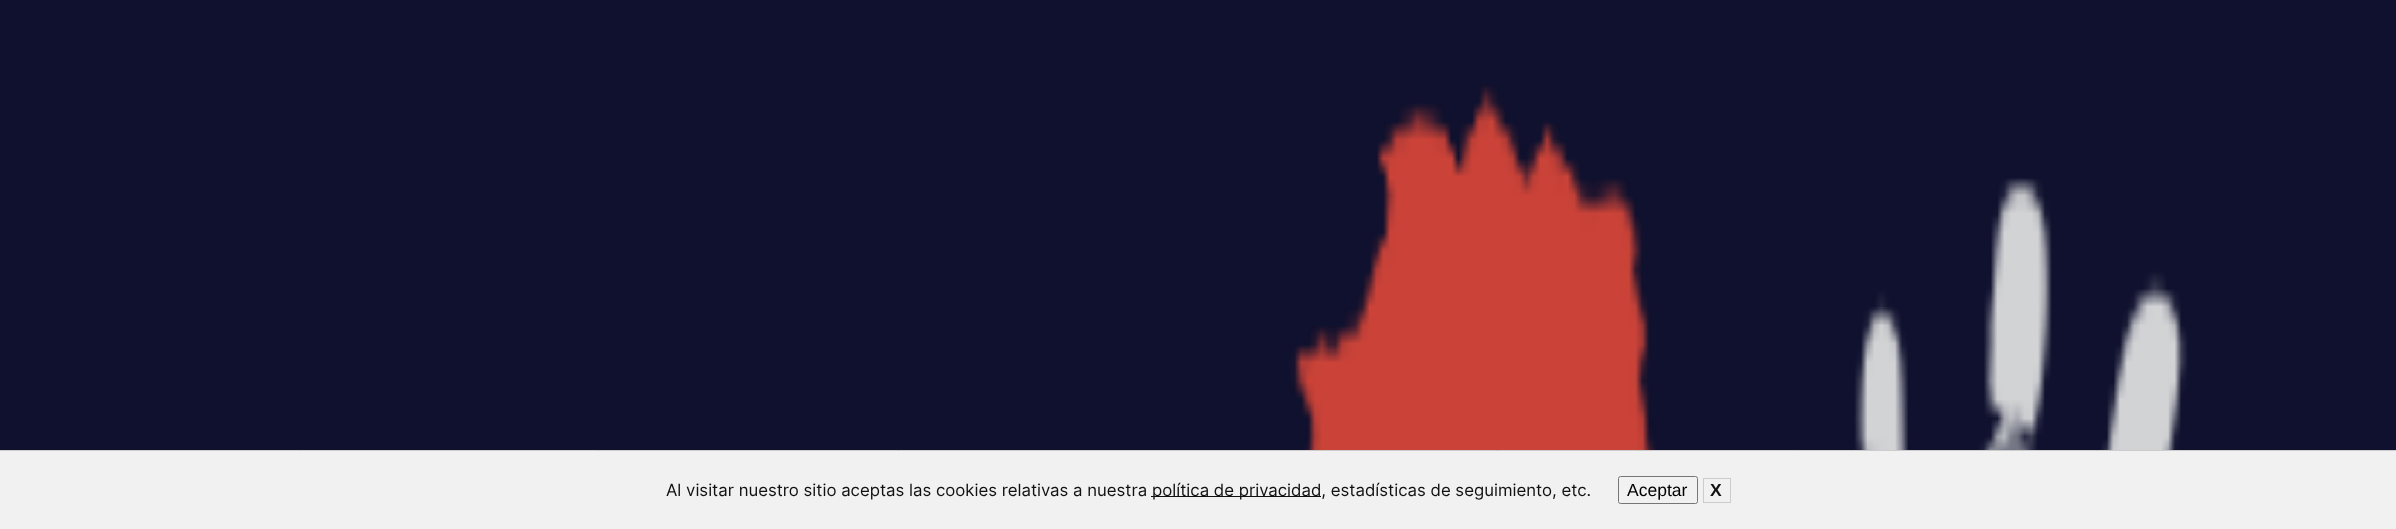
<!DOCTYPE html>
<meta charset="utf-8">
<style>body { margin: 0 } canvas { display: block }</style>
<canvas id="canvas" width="2396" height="529"></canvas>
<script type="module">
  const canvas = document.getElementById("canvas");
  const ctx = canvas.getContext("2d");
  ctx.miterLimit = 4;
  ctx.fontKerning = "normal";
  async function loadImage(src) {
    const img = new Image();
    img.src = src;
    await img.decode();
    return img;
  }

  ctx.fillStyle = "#0f112e";
  ctx.fillRect(0, 0, 2396, 529);
  ctx.drawImage(await loadImage("img1.png"), 1290, 85, 898, 365);
  ctx.fillStyle = "#f1f1f1";
  ctx.beginPath();
  ctx.rect(-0.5, 450.5, 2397, 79);
  ctx.fill();
  ctx.strokeStyle = "#cccccc";
  ctx.stroke();
  ctx.font = "16.8px Inter";
  ctx.fillStyle = "#111111";
  ctx.fillText("Al visitar nuestro sitio aceptas las cookies relativas a nuestra", 666, 496);
  ctx.fillRect(1151, 496, 170, 1);
  ctx.fillText("política de privacidad, estadísticas de seguimiento, etc.", 1152, 496);
  ctx.beginPath();
  ctx.roundRect(1618.5, 476.5, 79, 27, 2);
  ctx.strokeStyle = "#767676";
  ctx.stroke();
  ctx.font = "17.5px Liberation Sans";
  ctx.fillStyle = "#000000";
  ctx.fillText("Aceptar", 1627, 496);
  ctx.strokeStyle = "#cccccc";
  ctx.strokeRect(1703.5, 478.5, 27, 24);
  ctx.font = "bold 17.5px Liberation Sans";
  ctx.fillStyle = "#111111";
  ctx.fillText("X", 1710, 496);
</script>
